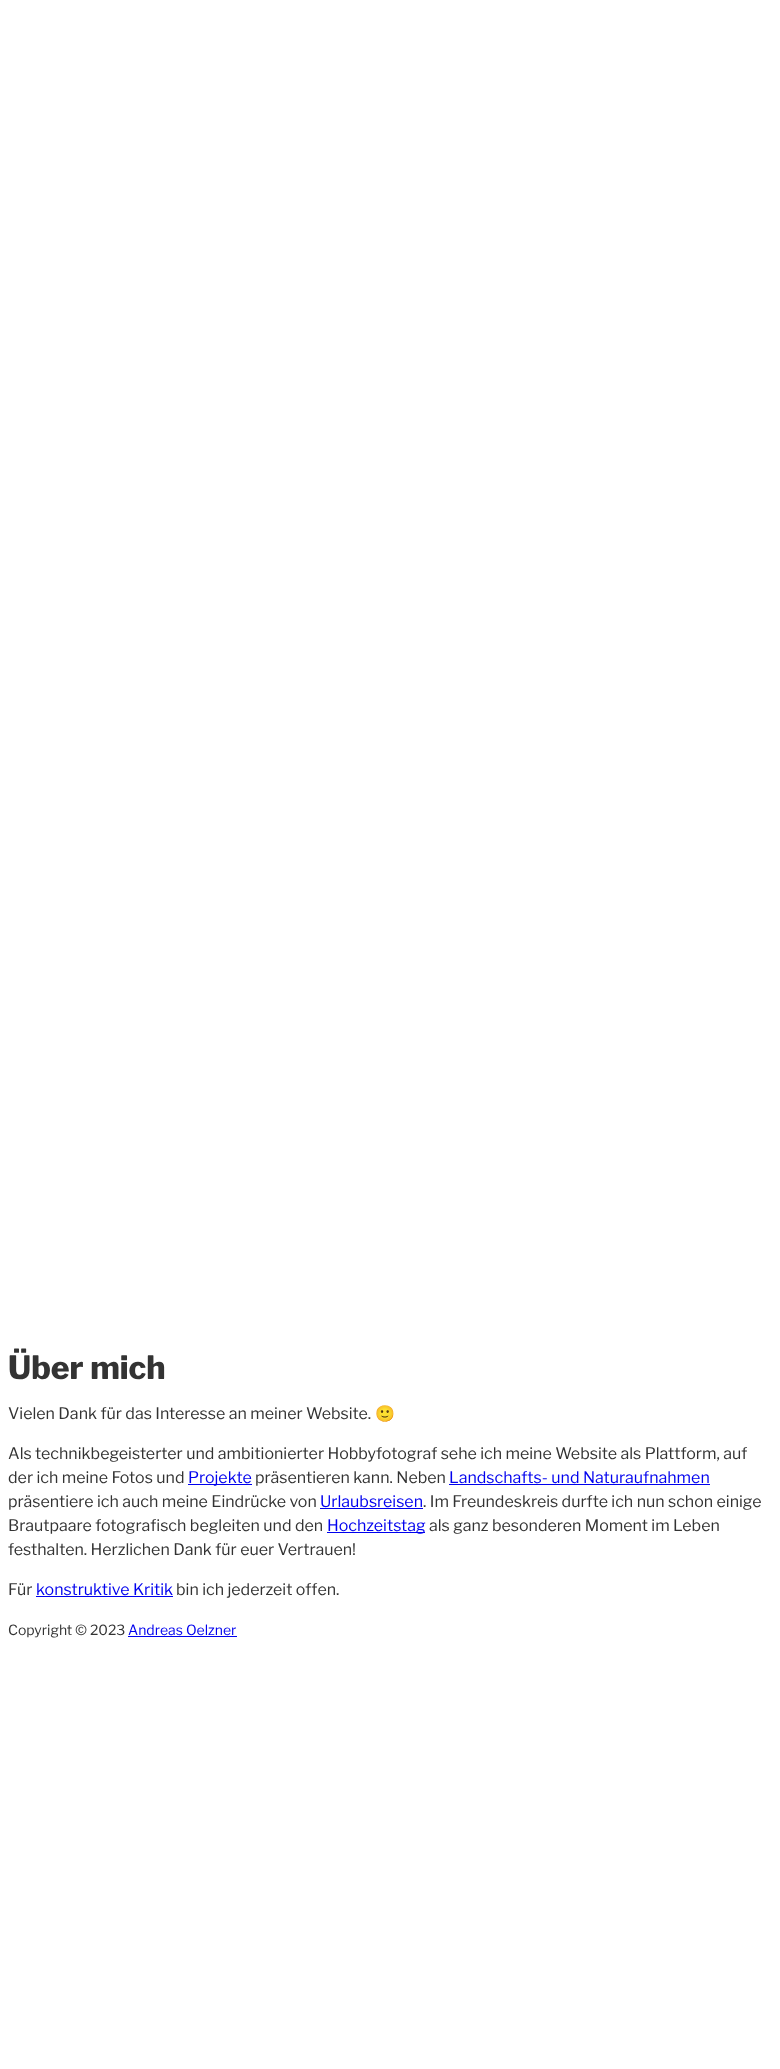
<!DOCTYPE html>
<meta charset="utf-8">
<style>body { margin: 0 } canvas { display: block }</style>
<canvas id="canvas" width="780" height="2069"></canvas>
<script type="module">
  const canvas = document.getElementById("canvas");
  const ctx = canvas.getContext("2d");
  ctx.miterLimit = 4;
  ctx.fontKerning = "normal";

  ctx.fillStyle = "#ffffff";
  ctx.fillRect(0, 0, 780, 2069);
  ctx.font = "800 32px Libre Franklin";
  ctx.fillStyle = "#333333";
  ctx.fillText("Über mich", 8, 1379);
  ctx.font = "16px Libre Franklin";
  ctx.fillText("Vielen Dank für das Interesse an meiner Website.", 8, 1419);
  ctx.font = "16px Noto Color Emoji";
  ctx.fillText("🙂", 375, 1419);
  ctx.font = "16px Libre Franklin";
  ctx.fillText("Als technikbegeisterter und ambitionierter Hobbyfotograf sehe ich meine Website als Plattform, auf", 8, 1459);
  ctx.fillText("der ich meine Fotos und", 8, 1483);
  ctx.fillStyle = "#0000ee";
  ctx.fillRect(188, 1484, 64, 1);
  ctx.fillText("Projekte", 188, 1483);
  ctx.fillStyle = "#333333";
  ctx.fillText("präsentieren kann. Neben", 255, 1483);
  ctx.fillStyle = "#0000ee";
  ctx.fillText("Landschafts- und Naturaufnahmen", 449, 1483);
  ctx.fillRect(449, 1484, 261, 1);
  ctx.fillStyle = "#333333";
  ctx.fillText("präsentiere ich auch meine Eindrücke von", 8, 1507);
  ctx.fillStyle = "#0000ee";
  ctx.fillText("Urlaubsreisen", 320, 1507);
  ctx.fillRect(320, 1508, 103, 1);
  ctx.fillStyle = "#333333";
  ctx.fillText(". Im Freundeskreis durfte ich nun schon einige", 423, 1507);
  ctx.fillText("Brautpaare fotografisch begleiten und den", 8, 1531);
  ctx.fillStyle = "#0000ee";
  ctx.fillRect(327, 1532, 98, 1);
  ctx.fillText("Hochzeitstag", 327, 1531);
  ctx.fillStyle = "#333333";
  ctx.fillText("als ganz besonderen Moment im Leben", 429, 1531);
  ctx.fillText("festhalten. Herzlichen Dank für euer Vertrauen!", 8, 1555);
  ctx.fillText("Für", 8, 1595);
  ctx.fillStyle = "#0000ee";
  ctx.fillText("konstruktive Kritik", 36, 1595);
  ctx.fillRect(36, 1596, 137, 1);
  ctx.fillStyle = "#333333";
  ctx.fillText("bin ich jederzeit offen.", 176, 1595);
  ctx.font = "14px Libre Franklin";
  ctx.fillText("Copyright © 2023", 8, 1635);
  ctx.fillStyle = "#0000ee";
  ctx.fillText("Andreas Oelzner", 128, 1635);
  ctx.fillRect(128, 1636, 109, 1);
</script>
